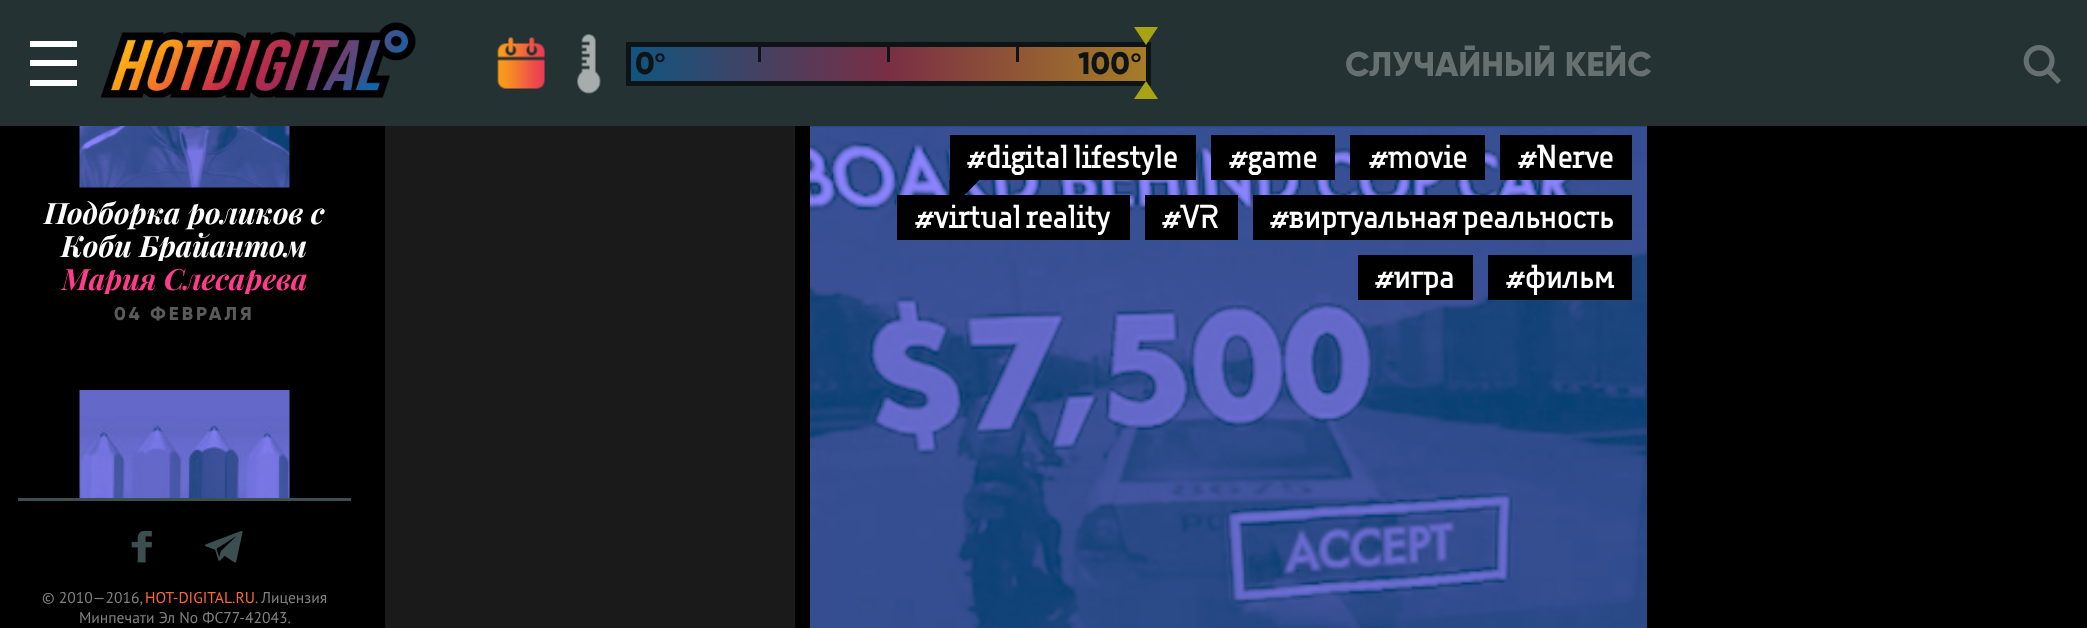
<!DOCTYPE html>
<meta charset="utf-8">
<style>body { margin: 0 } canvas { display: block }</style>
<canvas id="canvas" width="2087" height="628"></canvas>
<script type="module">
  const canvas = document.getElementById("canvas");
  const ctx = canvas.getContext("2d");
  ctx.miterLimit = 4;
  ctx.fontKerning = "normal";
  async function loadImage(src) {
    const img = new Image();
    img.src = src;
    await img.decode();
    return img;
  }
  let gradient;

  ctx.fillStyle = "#000000";
  ctx.fillRect(0, 0, 2087, 628);
  ctx.fillStyle = "#243234";
  ctx.fillRect(0, 0, 2087, 126);
  ctx.fillStyle = "#ffffff";
  ctx.fillRect(30, 60, 47, 6);
  ctx.fillRect(30, 41, 47, 6);
  ctx.fillRect(30, 80, 47, 6);
  ctx.drawImage(await loadImage("img1.png"), 100, 22, 316, 76);
  ctx.drawImage(await loadImage("img2.png"), 497, 37, 48, 52);
  ctx.drawImage(await loadImage("img3.png"), 577, 34, 24, 60);
  gradient = ctx.createLinearGradient(630, 64, 1146, 64);
  gradient.addColorStop(0, "#105580");
  gradient.addColorStop(0.5, "#792e45");
  gradient.addColorStop(1, "#a67d27");
  ctx.fillStyle = gradient;
  ctx.fillRect(631, 47, 515, 34);
  ctx.strokeStyle = "#0e1415";
  ctx.lineWidth = 5;
  ctx.strokeRect(628.5, 44.5, 520, 39);
  ctx.font = "800 30px Gilroy";
  ctx.fillStyle = "#0e1415";
  ctx.fillText("0", 635, 74);
  ctx.font = "bold 30px Liberation Sans";
  ctx.fillText("°", 654, 74);
  ctx.fillRect(758, 47, 3, 15);
  ctx.fillRect(887, 47, 3, 15);
  ctx.fillRect(1016, 47, 3, 15);
  ctx.font = "800 30px Gilroy";
  ctx.fillText("100", 1078, 74);
  ctx.font = "bold 30px Liberation Sans";
  ctx.fillText("°", 1130, 74);
  ctx.fillStyle = "#a7a315";
  ctx.beginPath();
  ctx.moveTo(1134, 27);
  ctx.lineTo(1158, 27);
  ctx.lineTo(1146, 45);
  ctx.closePath();
  ctx.fill();
  ctx.beginPath();
  ctx.moveTo(1158, 99);
  ctx.lineTo(1134, 99);
  ctx.lineTo(1146, 81);
  ctx.closePath();
  ctx.fill();
  ctx.font = "800 33px Gilroy";
  ctx.fillStyle = "#667071";
  ctx.fillText("СЛУЧАЙНЫЙ КЕЙС", 1345, 76);
  ctx.drawImage(await loadImage("img4.png"), 2023, 45, 38, 39);
  ctx.drawImage(await loadImage("img5.png"), 79, 126, 211, 62);
  ctx.font = "italic bold 30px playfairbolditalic";
  ctx.fillStyle = "#ffffff";
  ctx.fillText("Подборка роликов с", 44, 224);
  ctx.save();
  ctx.beginPath();
  ctx.rect(15, 126, 339, 135);
  ctx.clip();
  ctx.fillText("Коби Брайантом", 61, 257);
  ctx.restore();
  ctx.save();
  ctx.beginPath();
  ctx.rect(15, 261, 339, 33);
  ctx.clip();
  ctx.fillStyle = "#ff3c8c";
  ctx.fillText("Мария Слесарева", 62, 290);
  ctx.restore();
  ctx.letterSpacing = "3px";
  ctx.font = "800 18px Gilroy";
  ctx.fillStyle = "#5a5a5a";
  ctx.fillText("04 ФЕВРАЛЯ", 114, 320);
  ctx.drawImage(await loadImage("img6.png"), 79, 390, 211, 108);
  ctx.fillStyle = "#3b4e50";
  ctx.fillRect(18, 498, 333, 3);
  ctx.drawImage(await loadImage("img7.png"), 131, 531, 21, 32);
  ctx.drawImage(await loadImage("img8.png"), 205, 531, 38, 32);
  ctx.letterSpacing = "0px";
  ctx.font = "15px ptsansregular";
  ctx.fillStyle = "#808080";
  ctx.fillText("© 2010—2016,", 42, 603);
  ctx.fillStyle = "#ff6734";
  ctx.fillText("HOT-DIGITAL.RU", 145, 603);
  ctx.fillStyle = "#808080";
  ctx.fillText(". Лицензия", 255, 603);
  ctx.fillText("Минпечати Эл No ФС77-42043.", 79, 623);
  ctx.fillStyle = "#1a1a1a";
  ctx.fillRect(385, 126, 410, 502);
  ctx.drawImage(await loadImage("img9.png"), 810, 126, 837, 502);
  ctx.fillStyle = "#000000";
  ctx.fillRect(950, 135, 246, 45);
  ctx.font = "31.5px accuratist";
  ctx.fillStyle = "#ffffff";
  ctx.fillText("#digital lifestyle", 967, 168);
  ctx.fillStyle = "#000000";
  ctx.beginPath();
  ctx.moveTo(949.5, 180);
  ctx.lineTo(979.5, 180);
  ctx.lineTo(949.5, 210);
  ctx.closePath();
  ctx.fill();
  ctx.fillRect(1211, 135, 124, 45);
  ctx.fillStyle = "#ffffff";
  ctx.fillText("#game", 1229, 168);
  ctx.fillStyle = "#000000";
  ctx.fillRect(1350, 135, 135, 45);
  ctx.fillStyle = "#ffffff";
  ctx.fillText("#movie", 1369, 168);
  ctx.fillStyle = "#000000";
  ctx.fillRect(1500, 135, 132, 45);
  ctx.fillStyle = "#ffffff";
  ctx.fillText("#Nerve", 1518, 168);
  ctx.fillStyle = "#000000";
  ctx.fillRect(897, 195, 233, 45);
  ctx.fillStyle = "#ffffff";
  ctx.fillText("#virtual reality", 915, 228);
  ctx.fillStyle = "#000000";
  ctx.fillRect(1145, 195, 93, 45);
  ctx.fillStyle = "#ffffff";
  ctx.fillText("#VR", 1162, 228);
  ctx.fillStyle = "#000000";
  ctx.fillRect(1253, 195, 379, 45);
  ctx.fillStyle = "#ffffff";
  ctx.fillText("#виртуальная реальность", 1270, 228);
  ctx.fillStyle = "#000000";
  ctx.fillRect(1358, 255, 115, 45);
  ctx.fillStyle = "#ffffff";
  ctx.fillText("#игра", 1375, 288);
  ctx.fillStyle = "#000000";
  ctx.fillRect(1488, 255, 144, 45);
  ctx.fillStyle = "#ffffff";
  ctx.fillText("#фильм", 1506, 288);
</script>
